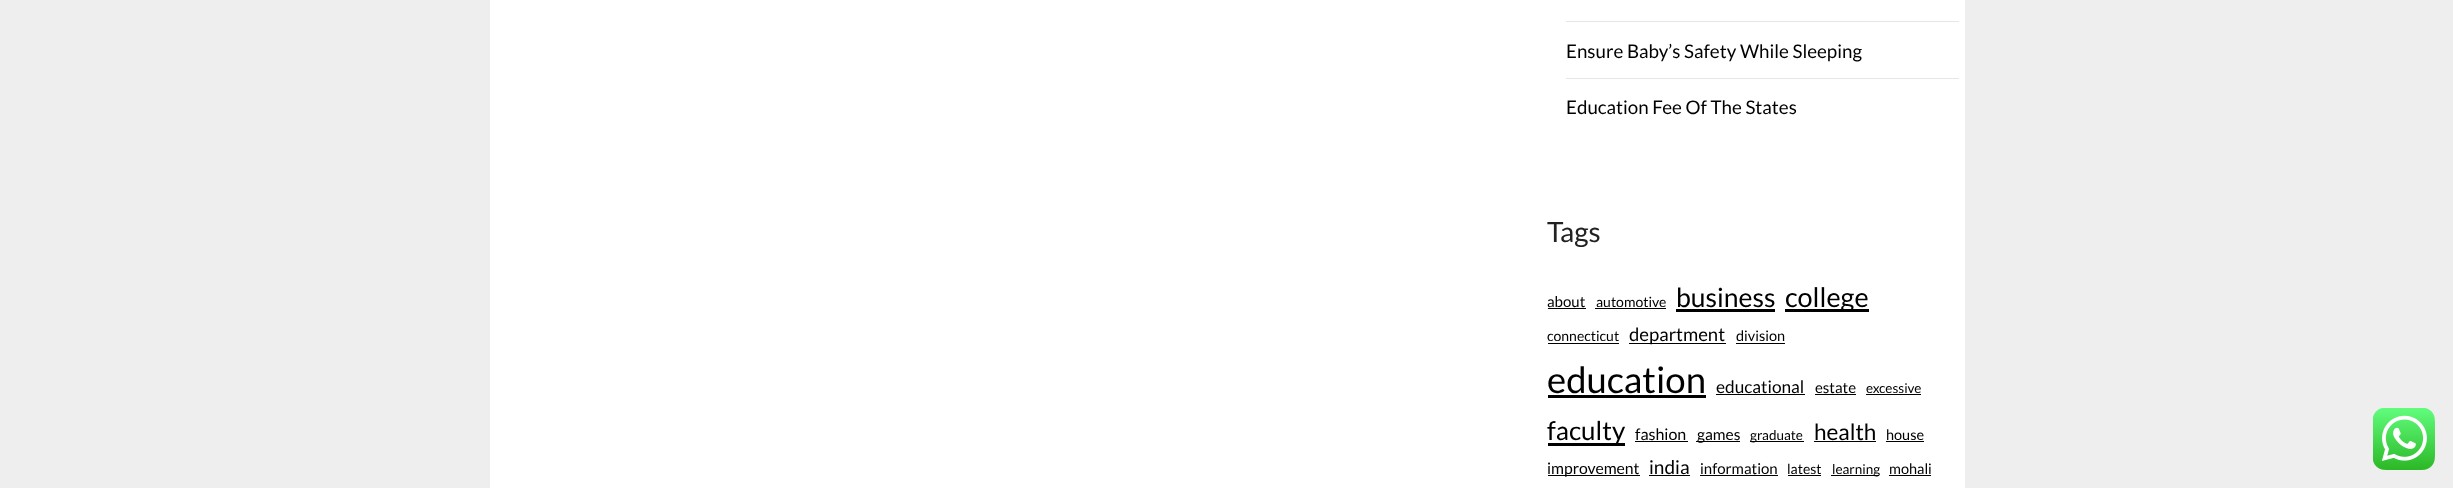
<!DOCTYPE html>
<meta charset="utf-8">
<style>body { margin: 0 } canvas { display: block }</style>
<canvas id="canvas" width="2453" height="488"></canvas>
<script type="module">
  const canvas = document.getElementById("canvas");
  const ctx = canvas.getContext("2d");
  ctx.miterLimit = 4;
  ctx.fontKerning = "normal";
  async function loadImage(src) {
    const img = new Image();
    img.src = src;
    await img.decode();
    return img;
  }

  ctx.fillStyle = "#eeeeee";
  ctx.fillRect(0, 0, 2453, 488);
  ctx.fillStyle = "#ffffff";
  ctx.fillRect(490, 0, 1475, 488);
  ctx.fillStyle = "#e6e6e6";
  ctx.fillRect(1566, 21, 393, 1);
  ctx.fillRect(1566, 78, 393, 1);
  ctx.font = "18.75px Lato";
  ctx.fillStyle = "#000000";
  ctx.fillText("Ensure Baby’s Safety While Sleeping", 1566, 58);
  ctx.fillText("Education Fee Of The States", 1566, 114);
  ctx.font = "28px Lato";
  ctx.fillStyle = "#222222";
  ctx.fillText("Tags", 1547, 242);
  ctx.font = "15px Lato";
  ctx.fillStyle = "#000000";
  ctx.fillText("about", 1547, 307);
  ctx.fillRect(1548, 308, 38, 1);
  ctx.font = "14px Lato";
  ctx.fillText("automotive", 1596, 307);
  ctx.fillRect(1595, 308, 71, 1);
  ctx.font = "26.5px Lato";
  ctx.fillText("business", 1676, 307);
  ctx.fillRect(1676, 309, 99, 3);
  ctx.fillRect(1785, 309, 84, 3);
  ctx.font = "27px Lato";
  ctx.fillText("college", 1785, 307);
  ctx.font = "14px Lato";
  ctx.fillText("connecticut", 1547, 341);
  ctx.fillRect(1548, 343, 71, 1);
  ctx.fillRect(1629, 343, 97, 1);
  ctx.font = "18.5px Lato";
  ctx.fillText("department", 1629, 341);
  ctx.font = "14.5px Lato";
  ctx.fillText("division", 1736, 341);
  ctx.fillRect(1736, 343, 49, 1);
  ctx.font = "36.5px Lato";
  ctx.fillText("education", 1547, 393);
  ctx.fillRect(1548, 395, 158, 3);
  ctx.font = "17.25px Lato";
  ctx.fillText("educational", 1716, 393);
  ctx.fillRect(1716, 394, 89, 1);
  ctx.font = "15px Lato";
  ctx.fillText("estate", 1815, 393);
  ctx.fillRect(1815, 394, 41, 1);
  ctx.font = "13.5px Lato";
  ctx.fillText("excessive", 1866, 393);
  ctx.fillRect(1866, 394, 55, 1);
  ctx.fillRect(1548, 443, 77, 3);
  ctx.font = "26px Lato";
  ctx.fillText("faculty", 1547, 440);
  ctx.font = "16px Lato";
  ctx.fillText("fashion", 1635, 440);
  ctx.fillRect(1635, 441, 53, 1);
  ctx.fillRect(1696, 441, 44, 1);
  ctx.font = "15.5px Lato";
  ctx.fillText("games", 1697, 440);
  ctx.fillRect(1750, 441, 54, 1);
  ctx.font = "13.5px Lato";
  ctx.fillText("graduate", 1750, 440);
  ctx.font = "22.5px Lato";
  ctx.fillText("health", 1814, 440);
  ctx.fillRect(1814, 441, 62, 1);
  ctx.font = "14.5px Lato";
  ctx.fillText("house", 1886, 440);
  ctx.fillRect(1886, 441, 38, 1);
  ctx.fillRect(1548, 475, 92, 1);
  ctx.font = "15.75px Lato";
  ctx.fillText("improvement", 1547, 474);
  ctx.font = "19px Lato";
  ctx.fillText("india", 1649, 474);
  ctx.fillRect(1649, 475, 41, 1);
  ctx.font = "15px Lato";
  ctx.fillText("information", 1700, 474);
  ctx.fillRect(1700, 475, 78, 1);
  ctx.font = "14px Lato";
  ctx.fillText("latest", 1787, 474);
  ctx.fillRect(1788, 475, 33, 1);
  ctx.fillRect(1831, 475, 48, 1);
  ctx.font = "13.5px Lato";
  ctx.fillText("learning", 1832, 474);
  ctx.font = "14.5px Lato";
  ctx.fillText("mohali", 1889, 474);
  ctx.fillRect(1889, 475, 42, 1);
  ctx.drawImage(await loadImage("img1.png"), 2373, 408, 62, 62);
</script>
